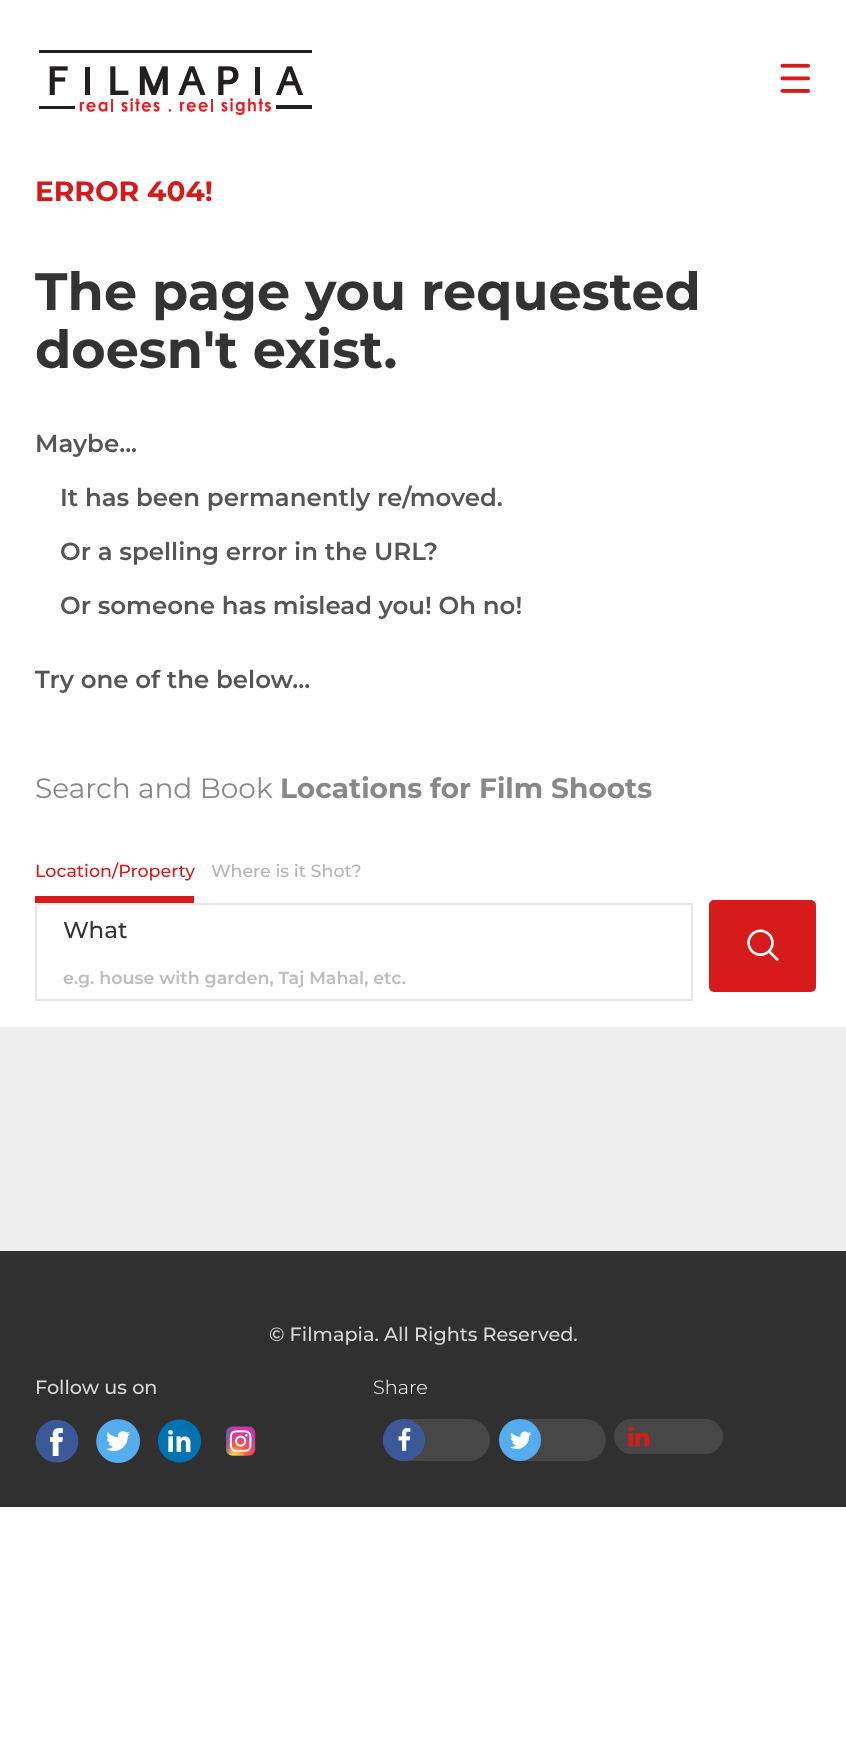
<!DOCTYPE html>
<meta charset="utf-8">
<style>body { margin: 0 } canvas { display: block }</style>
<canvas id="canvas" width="846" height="1752"></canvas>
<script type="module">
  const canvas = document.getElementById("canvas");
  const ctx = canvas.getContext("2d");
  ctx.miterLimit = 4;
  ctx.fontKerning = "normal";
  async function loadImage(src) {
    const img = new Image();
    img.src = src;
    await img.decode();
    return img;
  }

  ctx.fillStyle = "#ffffff";
  ctx.fillRect(0, 0, 846, 1752);
  ctx.drawImage(await loadImage("img1.png"), 39, 50, 273, 65);
  ctx.drawImage(await loadImage("img2.png"), 780, 63, 30, 30);
  ctx.fillStyle = "#eeeeee";
  ctx.fillRect(0, 1027, 846, 224);
  ctx.font = "bold 28px Montserrat";
  ctx.fillStyle = "#d71919";
  ctx.fillText("ERROR 404!", 35, 201);
  ctx.font = "bold 52.5px Montserrat";
  ctx.fillStyle = "#333333";
  ctx.fillText("The page you requested", 35, 310);
  ctx.fillText("doesn't exist.", 35, 368);
  ctx.font = "600 24.5px Montserrat";
  ctx.fillStyle = "#555555";
  ctx.fillText("Maybe...", 35, 452);
  ctx.fillText("It has been permanently re/moved.", 60, 506);
  ctx.fillText("Or a spelling error in the URL?", 60, 560);
  ctx.fillText("Or someone has mislead you! Oh no!", 60, 614);
  ctx.fillText("Try one of the below...", 35, 688);
  ctx.font = "28px Montserrat";
  ctx.fillStyle = "#888888";
  ctx.fillText("Search and Book", 35, 798);
  ctx.font = "bold 28px Montserrat";
  ctx.fillText("Locations for Film Shoots", 280, 798);
  ctx.strokeStyle = "#e6e6e6";
  ctx.lineWidth = 2;
  ctx.strokeRect(36, 904, 656, 96);
  ctx.font = "500 23px Montserrat";
  ctx.fillStyle = "#333333";
  ctx.fillText("What", 63, 938);
  ctx.font = "600 17.5px Montserrat";
  ctx.fillStyle = "#bdbdbd";
  ctx.fillText("e.g. house with garden, Taj Mahal, etc.", 63, 984);
  ctx.fillStyle = "#d71a1a";
  ctx.beginPath();
  ctx.roundRect(710, 901, 105, 90, 4);
  ctx.fill();
  ctx.strokeStyle = "#d71a1a";
  ctx.stroke();
  ctx.drawImage(await loadImage("img3.png"), 747, 929, 32, 32);
  ctx.fillRect(35, 896, 159, 7);
  ctx.font = "500 17.5px Montserrat";
  ctx.fillStyle = "#d71919";
  ctx.fillText("Location/Property", 35, 877);
  ctx.fillStyle = "#b4b4b4";
  ctx.fillText("Where is it Shot?", 211, 877);
  ctx.fillStyle = "#303030";
  ctx.fillRect(0, 1251, 846, 256);
  ctx.font = "500 19.25px Montserrat";
  ctx.fillStyle = "#d7d7d7";
  ctx.fillText("© Filmapia. All Rights Reserved.", 269, 1341);
  ctx.fillText("Follow us on", 35, 1394);
  ctx.drawImage(await loadImage("img4.png"), 35, 1419, 44, 44);
  ctx.drawImage(await loadImage("img5.png"), 96, 1419, 44, 44);
  ctx.drawImage(await loadImage("img6.png"), 158, 1419, 43, 44);
  ctx.drawImage(await loadImage("img7.png"), 226, 1426, 30, 30);
  ctx.font = "300 19.25px Montserrat";
  ctx.fillStyle = "#ffffff";
  ctx.fillText("Share", 373, 1394);
  ctx.fillStyle = "#474747";
  ctx.beginPath();
  ctx.roundRect(383, 1419, 107, 42, 21);
  ctx.fill();
  ctx.fillStyle = "#3b5998";
  ctx.beginPath();
  ctx.arc(404, 1440, 21, 0, Math.PI * 2);
  ctx.fill();
  ctx.drawImage(await loadImage("img8.png"), 398, 1428, 13, 23);
  ctx.fillStyle = "#474747";
  ctx.beginPath();
  ctx.roundRect(499, 1419, 107, 42, 21);
  ctx.fill();
  ctx.fillStyle = "#55acee";
  ctx.beginPath();
  ctx.arc(520, 1440, 21, 0, Math.PI * 2);
  ctx.fill();
  ctx.drawImage(await loadImage("img9.png"), 510, 1431, 22, 18);
  ctx.fillStyle = "#474747";
  ctx.beginPath();
  ctx.roundRect(614, 1419, 109, 35, 17.5);
  ctx.fill();
  ctx.drawImage(await loadImage("img10.png"), 628, 1426, 22, 21);
</script>
